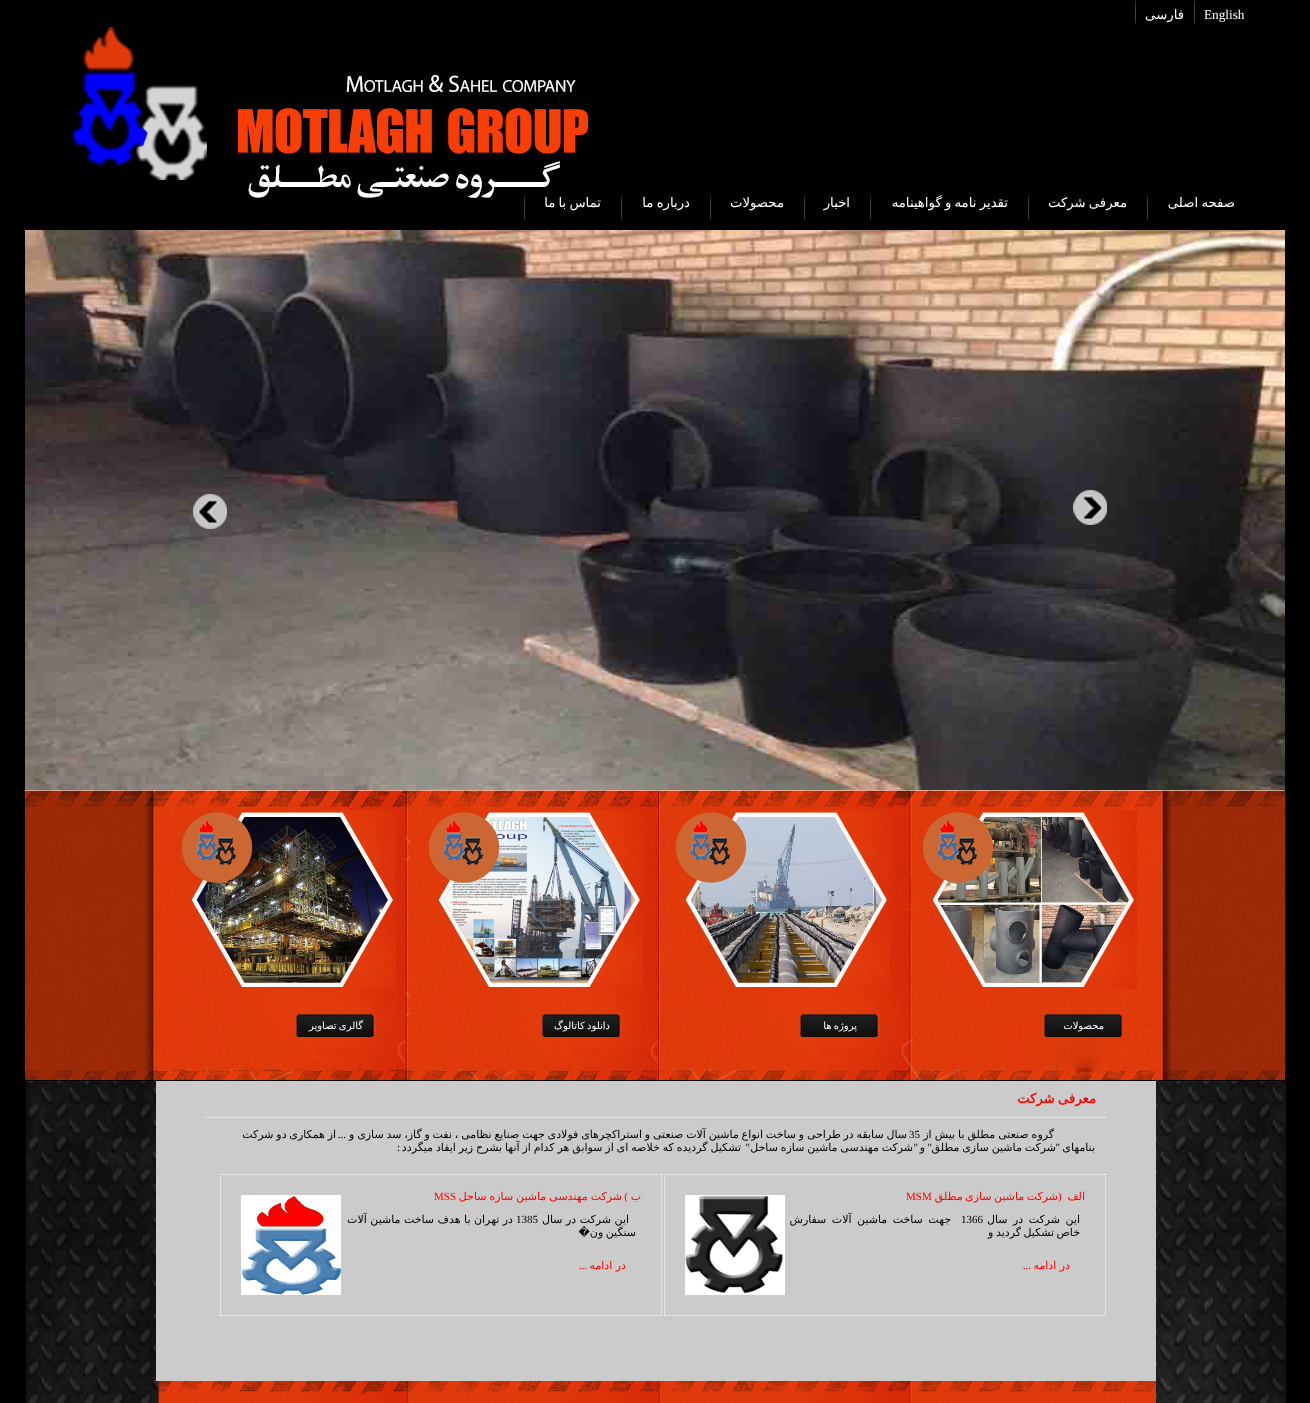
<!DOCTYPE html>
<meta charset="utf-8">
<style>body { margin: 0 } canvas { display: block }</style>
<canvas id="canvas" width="1310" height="1403"></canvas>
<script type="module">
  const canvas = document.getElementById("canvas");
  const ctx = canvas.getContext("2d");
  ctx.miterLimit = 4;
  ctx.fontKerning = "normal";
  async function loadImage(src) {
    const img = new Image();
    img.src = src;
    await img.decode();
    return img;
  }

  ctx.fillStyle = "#000000";
  ctx.fillRect(0, 0, 1310, 1403);
  ctx.drawImage(await loadImage("img1.png"), 73, 26, 520, 174);
  ctx.font = "13.25px Liberation Serif";
  ctx.fillStyle = "#ffffff";
  ctx.fillText("English", 1204, 19);
  ctx.drawImage(await loadImage("img2.png"), 1194, 0, 1, 24);
  ctx.direction = "rtl";
  ctx.font = "13.25px DejaVu Sans";
  ctx.fillText("فارسی", 1184, 19);
  ctx.drawImage(await loadImage("img2.png"), 1135, 0, 1, 24);
  ctx.drawImage(await loadImage("img3.png"), 1147, 195, 1, 25);
  ctx.wordSpacing = "-1px";
  ctx.fillText("صفحه اصلی", 1235, 207);
  ctx.drawImage(await loadImage("img3.png"), 1028, 195, 1, 25);
  ctx.fillText("معرفی شرکت", 1127, 207);
  ctx.drawImage(await loadImage("img3.png"), 870, 195, 1, 25);
  ctx.fillText("تقدیر نامه و گواهینامه", 1008, 207);
  ctx.drawImage(await loadImage("img3.png"), 804, 195, 1, 25);
  ctx.wordSpacing = "0px";
  ctx.fillText("اخبار", 850, 207);
  ctx.drawImage(await loadImage("img3.png"), 710, 195, 1, 25);
  ctx.fillText("محصولات", 784, 207);
  ctx.drawImage(await loadImage("img3.png"), 621, 195, 1, 25);
  ctx.wordSpacing = "-1px";
  ctx.fillText("درباره ما", 690, 207);
  ctx.drawImage(await loadImage("img3.png"), 524, 195, 1, 25);
  ctx.fillText("تماس با ما", 601, 207);
  ctx.drawImage(await loadImage("img4.png"), 25, 230, 1260, 560);
  ctx.drawImage(await loadImage("img5.png"), 1073, 490, 34, 35);
  ctx.drawImage(await loadImage("img6.png"), 193, 494, 34, 35);
  ctx.drawImage(await loadImage("img7.png"), 25, 790, 1260, 290);
  ctx.drawImage(await loadImage("img9.png"), 937, 817, 192, 166);
  ctx.drawImage(await loadImage("img8.png"), 922, 810, 215, 179);
  ctx.drawImage(await loadImage("img10.png"), 1044, 1014, 80, 23);
  ctx.wordSpacing = "0px";
  ctx.font = "10px DejaVu Sans";
  ctx.fillText("محصولات", 1104, 1029);
  ctx.drawImage(await loadImage("img12.png"), 690, 817, 192, 166);
  ctx.drawImage(await loadImage("img11.png"), 675, 810, 215, 179);
  ctx.drawImage(await loadImage("img10.png"), 800, 1014, 80, 23);
  ctx.wordSpacing = "-1px";
  ctx.fillText("پروژه ها", 857, 1029);
  ctx.drawImage(await loadImage("img14.png"), 443, 817, 192, 166);
  ctx.drawImage(await loadImage("img13.png"), 428, 810, 215, 179);
  ctx.drawImage(await loadImage("img10.png"), 542, 1014, 80, 23);
  ctx.fillText("دانلود کاتالوگ", 610, 1029);
  ctx.drawImage(await loadImage("img16.png"), 196, 817, 192, 166);
  ctx.drawImage(await loadImage("img15.png"), 181, 810, 215, 179);
  ctx.drawImage(await loadImage("img10.png"), 296, 1014, 80, 23);
  ctx.fillText("گالری تصاویر", 363, 1029);
  ctx.drawImage(await loadImage("img17.png"), 26, 1081, 1260, 322);
  ctx.fillStyle = "#cbcbcb";
  ctx.fillRect(156, 1081, 1000, 300);
  ctx.beginPath();
  ctx.moveTo(206, 1117.5);
  ctx.lineTo(1106, 1117.5);
  ctx.strokeStyle = "#ffffff";
  ctx.setLineDash([1, 1]);
  ctx.stroke();
  ctx.font = "bold 13.25px DejaVu Sans";
  ctx.fillStyle = "#ff0000";
  ctx.fillText("معرفی شرکت", 1096, 1103);
  ctx.wordSpacing = "-0.5px";
  ctx.font = "11px DejaVu Sans";
  ctx.fillStyle = "#000000";
  ctx.fillText("گروه صنعتی مطلق با بیش از", 1054, 1138);
  ctx.wordSpacing = "-0.7px";
  ctx.fillText("سال سابقه در طراحی و ساخت انواع ماشین آلات صنعتی و استراکچرهای فولادی جهت صنایع نظامی ، نفت و گاز، سد سازی و", 907, 1138);
  ctx.wordSpacing = "0px";
  ctx.direction = "ltr";
  ctx.font = "11px Liberation Serif";
  ctx.fillText("35", 909, 1138);
  ctx.direction = "rtl";
  ctx.fillText("...", 346, 1138);
  ctx.wordSpacing = "-0.7px";
  ctx.font = "11px DejaVu Sans";
  ctx.fillText("از همکاری دو شرکت", 336, 1138);
  ctx.wordSpacing = "0px";
  ctx.fillText("بنامهای", 1095, 1151);
  ctx.wordSpacing = "-0.6px";
  ctx.fillText("شرکت ماشین سازی مطلق", 1056, 1151);
  ctx.fillText("شرکت مهندسی ماشین سازه ساحل", 913, 1151);
  ctx.fillText("تشکیل گردیده که خلاصه ای از سوابق هر کدام از آنها بشرح زیر ایفاد میگردد", 741, 1151);
  ctx.wordSpacing = "0px";
  ctx.font = "11px Liberation Serif";
  ctx.fillText("\"", 750, 1151);
  ctx.fillText("\"", 1060, 1151);
  ctx.fillText("\"", 932, 1151);
  ctx.font = "11px DejaVu Sans";
  ctx.fillText("و", 925, 1151);
  ctx.font = "11px Liberation Serif";
  ctx.fillText("\"", 918, 1151);
  ctx.fillText(":", 400, 1151);
  ctx.beginPath();
  ctx.moveTo(664, 1174.5);
  ctx.lineTo(1106, 1174.5);
  ctx.stroke();
  ctx.beginPath();
  ctx.moveTo(1105.5, 1174);
  ctx.lineTo(1105.5, 1316);
  ctx.stroke();
  ctx.beginPath();
  ctx.moveTo(664, 1315.5);
  ctx.lineTo(1106, 1315.5);
  ctx.stroke();
  ctx.beginPath();
  ctx.moveTo(664.5, 1174);
  ctx.lineTo(664.5, 1316);
  ctx.stroke();
  ctx.font = "11px DejaVu Sans";
  ctx.fillStyle = "#ff0000";
  ctx.fillText("الف", 1085, 1200);
  ctx.direction = "ltr";
  ctx.font = "11px Liberation Serif";
  ctx.fillText(")", 1058, 1200);
  ctx.wordSpacing = "-1px";
  ctx.direction = "rtl";
  ctx.font = "11px DejaVu Sans";
  ctx.fillText("شرکت ماشین سازی مطلق", 1058, 1200);
  ctx.wordSpacing = "0px";
  ctx.direction = "ltr";
  ctx.font = "11px Liberation Serif";
  ctx.fillText("MSM", 906, 1200);
  ctx.drawImage(await loadImage("img18.png"), 685, 1195, 100, 100);
  ctx.wordSpacing = "2px";
  ctx.direction = "rtl";
  ctx.font = "11px DejaVu Sans";
  ctx.fillStyle = "#000000";
  ctx.fillText("این شرکت در سال", 1080, 1223);
  ctx.wordSpacing = "0px";
  ctx.direction = "ltr";
  ctx.font = "11px Liberation Serif";
  ctx.fillText("1366", 961, 1223);
  ctx.wordSpacing = "2px";
  ctx.direction = "rtl";
  ctx.font = "11px DejaVu Sans";
  ctx.fillText("جهت ساخت ماشین آلات سفارش", 951, 1223);
  ctx.wordSpacing = "-1px";
  ctx.fillText("خاص تشکیل گردید و", 1080, 1236);
  ctx.wordSpacing = "0px";
  ctx.fillStyle = "#ff0000";
  ctx.fillText("در ادامه", 1070, 1269);
  ctx.font = "11px Liberation Serif";
  ctx.fillText("...", 1031, 1269);
  ctx.beginPath();
  ctx.moveTo(220, 1174.5);
  ctx.lineTo(662, 1174.5);
  ctx.stroke();
  ctx.beginPath();
  ctx.moveTo(661.5, 1174);
  ctx.lineTo(661.5, 1316);
  ctx.stroke();
  ctx.beginPath();
  ctx.moveTo(220, 1315.5);
  ctx.lineTo(662, 1315.5);
  ctx.stroke();
  ctx.beginPath();
  ctx.moveTo(220.5, 1174);
  ctx.lineTo(220.5, 1316);
  ctx.stroke();
  ctx.font = "11px DejaVu Sans";
  ctx.fillText("ب", 641, 1200);
  ctx.font = "11px Liberation Serif";
  ctx.fillText(")", 628, 1200);
  ctx.wordSpacing = "-0.5px";
  ctx.font = "11px DejaVu Sans";
  ctx.fillText("شرکت مهندسی ماشین سازه ساحل", 622, 1200);
  ctx.wordSpacing = "0px";
  ctx.direction = "ltr";
  ctx.font = "11px Liberation Serif";
  ctx.fillText("MSS", 434, 1200);
  ctx.drawImage(await loadImage("img19.png"), 241, 1195, 100, 100);
  ctx.direction = "rtl";
  ctx.font = "11px DejaVu Sans";
  ctx.fillStyle = "#000000";
  ctx.fillText("این شرکت در سال", 629, 1223);
  ctx.direction = "ltr";
  ctx.font = "11px Liberation Serif";
  ctx.fillText("1385", 516, 1223);
  ctx.direction = "rtl";
  ctx.font = "11px DejaVu Sans";
  ctx.fillText("در تهران با هدف ساخت ماشین آلات", 513, 1223);
  ctx.wordSpacing = "-1px";
  ctx.fillText("سنگین ون�", 636, 1236);
  ctx.wordSpacing = "0px";
  ctx.fillStyle = "#ff0000";
  ctx.fillText("در ادامه", 626, 1269);
  ctx.font = "11px Liberation Serif";
  ctx.fillText("...", 587, 1269);
  ctx.drawImage(await loadImage("img20.png"), 158, 1381, 998, 22);
</script>
